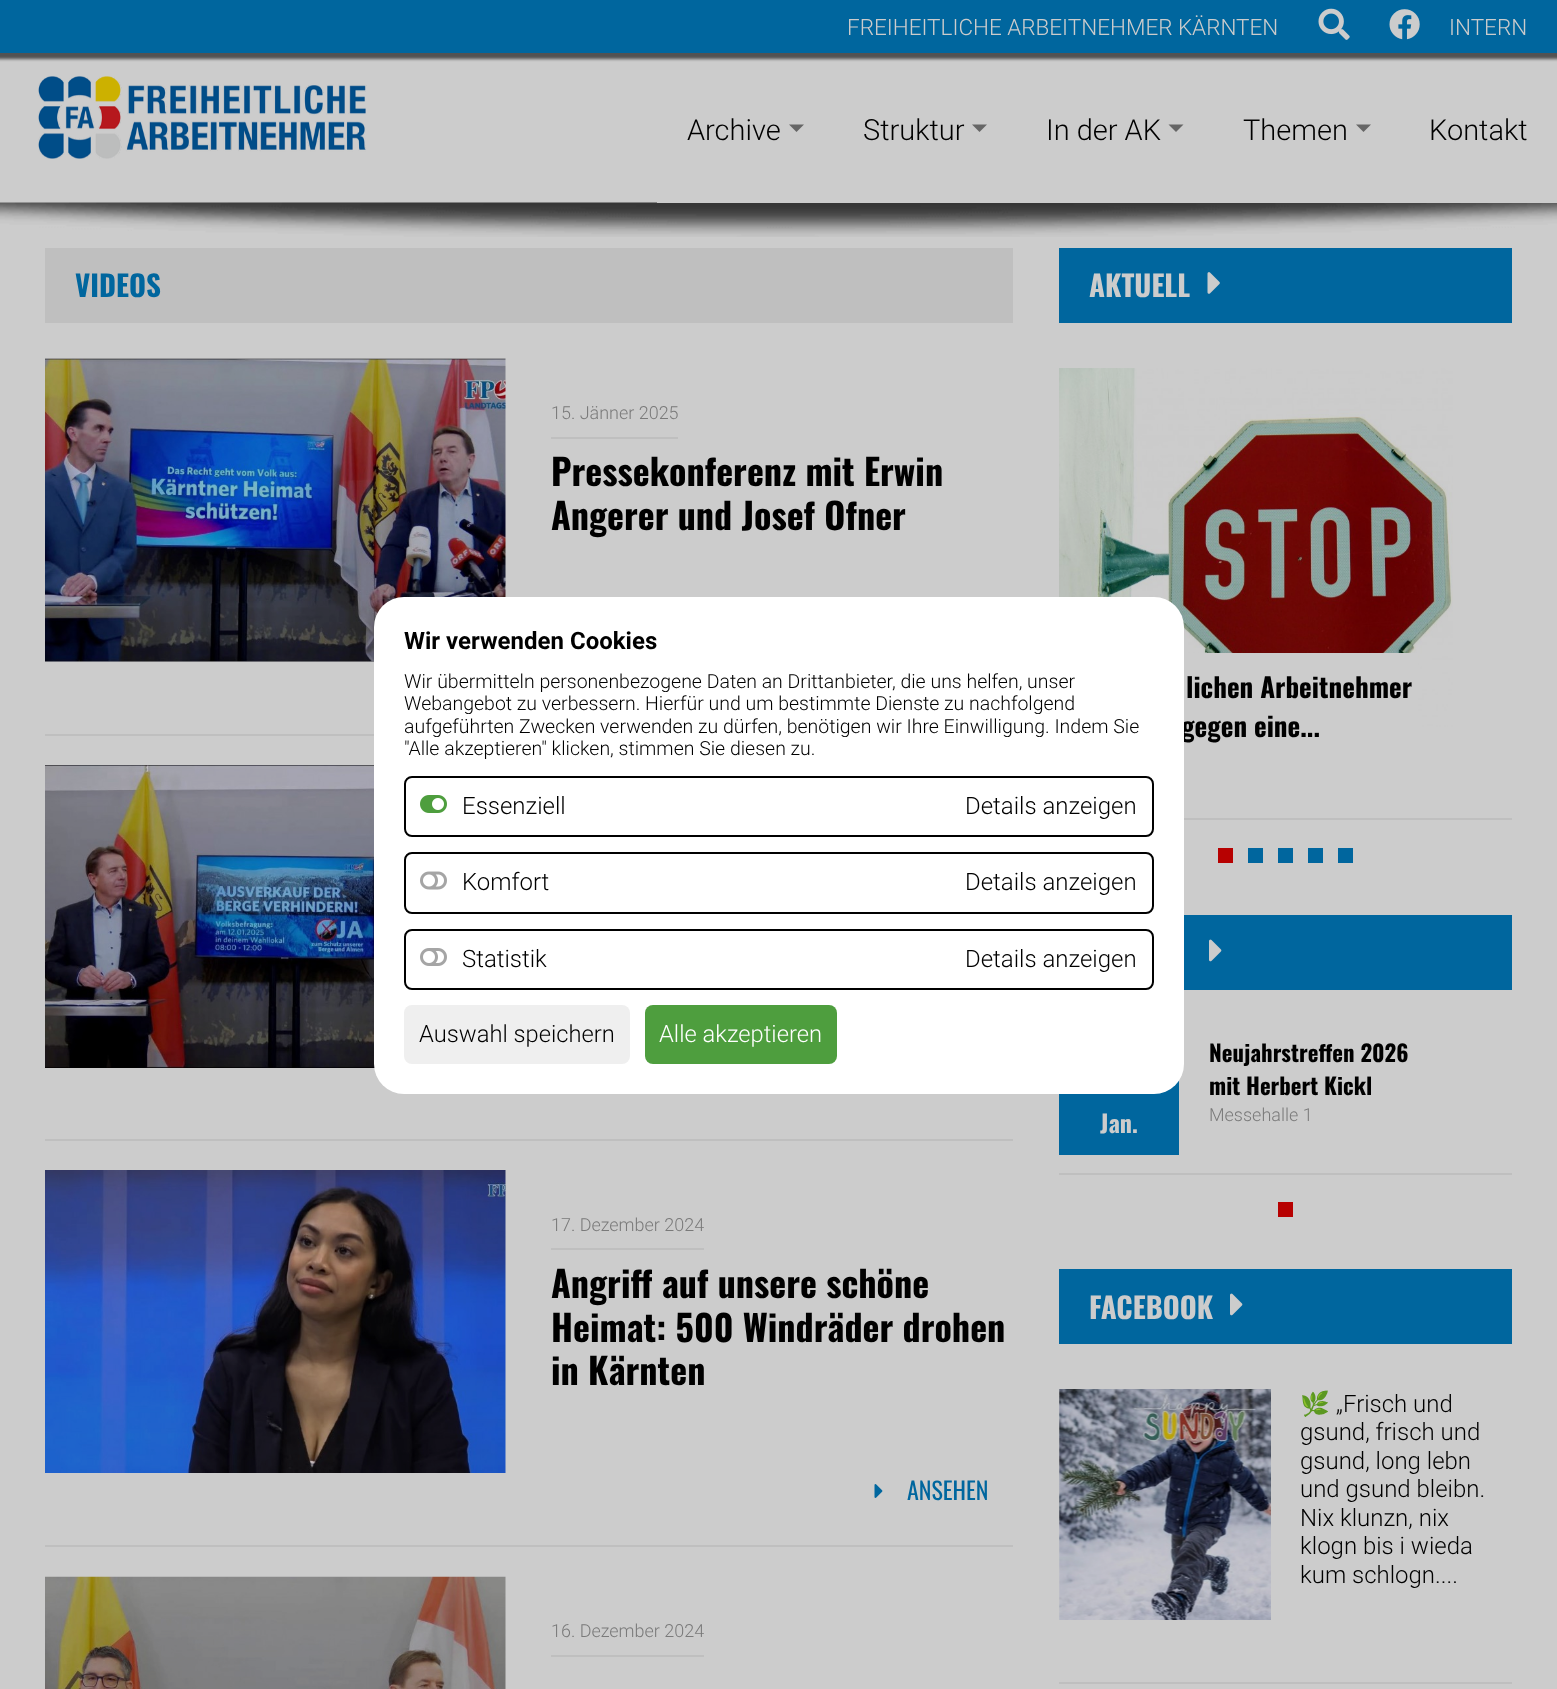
<!DOCTYPE html>
<meta charset="utf-8">
<style>body { margin: 0 } canvas { display: block }</style>
<canvas id="canvas" width="1557" height="1689"></canvas>
<script type="module">
  const canvas = document.getElementById("canvas");
  const ctx = canvas.getContext("2d");
  ctx.miterLimit = 4;
  ctx.fontKerning = "normal";
  async function loadImage(src) {
    const img = new Image();
    img.src = src;
    await img.decode();
    return img;
  }

  ctx.fillStyle = "#cccccc";
  ctx.fillRect(0, 0, 1557, 1689);
  ctx.drawImage(await loadImage("img1.png"), 0, 202, 1557, 35);
  ctx.fillStyle = "rgba(0, 0, 0, 0.6)";
  ctx.filter = "blur(1.5px)";
  ctx.beginPath();
  ctx.rect(-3, 0, 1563, 59);
  ctx.fill();
  ctx.filter = "none";
  ctx.fillStyle = "#00669e";
  ctx.fillRect(0, 0, 1557, 53);
  ctx.font = "300 22.5px Roboto";
  ctx.fillStyle = "#cccccc";
  ctx.fillText("FREIHEITLICHE ARBEITNEHMER KÄRNTEN", 847, 35);
  ctx.drawImage(await loadImage("img2.png"), 1318, 8, 32, 32);
  ctx.drawImage(await loadImage("img3.png"), 1389, 9, 31, 31);
  ctx.fillText("INTERN", 1449, 35);
  ctx.drawImage(await loadImage("img4.png"), 38, 76, 329, 83);
  ctx.fillRect(657, 202, 900, 1);
  ctx.font = "300 29px Roboto";
  ctx.fillStyle = "#000000";
  ctx.fillText("Archive", 687, 140);
  ctx.fillStyle = "#666666";
  ctx.beginPath();
  ctx.moveTo(789, 124.5);
  ctx.lineTo(804, 124.5);
  ctx.lineTo(796.5, 132);
  ctx.closePath();
  ctx.fill();
  ctx.fillStyle = "#000000";
  ctx.fillText("Struktur", 863, 140);
  ctx.fillStyle = "#666666";
  ctx.beginPath();
  ctx.moveTo(972, 124.5);
  ctx.lineTo(987, 124.5);
  ctx.lineTo(979.5, 132);
  ctx.closePath();
  ctx.fill();
  ctx.fillStyle = "#000000";
  ctx.fillText("In der AK", 1046, 140);
  ctx.fillStyle = "#666666";
  ctx.beginPath();
  ctx.moveTo(1168.5, 124.5);
  ctx.lineTo(1183.5, 124.5);
  ctx.lineTo(1176, 132);
  ctx.closePath();
  ctx.fill();
  ctx.fillStyle = "#000000";
  ctx.fillText("Themen", 1243, 140);
  ctx.fillStyle = "#666666";
  ctx.beginPath();
  ctx.moveTo(1356, 124.5);
  ctx.lineTo(1371, 124.5);
  ctx.lineTo(1363.5, 132);
  ctx.closePath();
  ctx.fill();
  ctx.fillStyle = "#000000";
  ctx.fillText("Kontakt", 1429, 140);
  ctx.drawImage(await loadImage("img8.png"), 45, 358, 461, 304);
  ctx.drawImage(await loadImage("img9.png"), 45, 765, 330, 303);
  ctx.drawImage(await loadImage("img14.png"), 1059, 368, 394, 360);
  ctx.fillStyle = "#cccccc";
  ctx.fillRect(1184, 653, 234, 75);
  ctx.font = "bold 27px Oswald";
  ctx.fillStyle = "#000000";
  ctx.fillText("gegen eine...", 1181, 737);
  ctx.fillStyle = "#00669e";
  ctx.fillRect(1059, 1080, 120, 75);
  ctx.fillStyle = "#ffffff";
  ctx.beginPath();
  ctx.roundRect(374, 597, 810, 497, 30);
  ctx.fill();
  ctx.font = "bold 24px Roboto";
  ctx.fillStyle = "#000000";
  ctx.fillText("Wir verwenden Cookies", 404, 649);
  ctx.font = "300 19.5px Roboto";
  ctx.fillText("Wir übermitteln personenbezogene Daten an Drittanbieter, die uns helfen, unser", 404, 688);
  ctx.fillText("Webangebot zu verbessern. Hierfür und um bestimmte Dienste zu nachfolgend", 404, 710);
  ctx.fillText("aufgeführten Zwecken verwenden zu dürfen, benötigen wir Ihre Einwilligung. Indem Sie", 404, 733);
  ctx.fillText("\"Alle akzeptieren\" klicken, stimmen Sie diesen zu.", 404, 755);
  ctx.beginPath();
  ctx.roundRect(405, 777, 748, 59, 7);
  ctx.strokeStyle = "#000000";
  ctx.lineWidth = 2;
  ctx.stroke();
  ctx.drawImage(await loadImage("img5.png"), 420, 795, 27, 18);
  ctx.font = "300 24px Roboto";
  ctx.fillText("Essenziell", 462, 814);
  ctx.fillText("Details anzeigen", 965, 814);
  ctx.beginPath();
  ctx.roundRect(405, 853, 748, 60, 7);
  ctx.stroke();
  ctx.drawImage(await loadImage("img6.png"), 420, 871, 27, 19);
  ctx.fillText("Komfort", 462, 890);
  ctx.fillText("Details anzeigen", 965, 890);
  ctx.beginPath();
  ctx.roundRect(405, 930, 748, 59, 7);
  ctx.stroke();
  ctx.drawImage(await loadImage("img7.png"), 420, 948, 27, 18);
  ctx.fillText("Statistik", 462, 967);
  ctx.fillText("Details anzeigen", 965, 967);
  ctx.fillStyle = "#efefef";
  ctx.beginPath();
  ctx.roundRect(404, 1005, 226, 59, 8);
  ctx.fill();
  ctx.font = "300 23.75px Roboto";
  ctx.fillStyle = "#000000";
  ctx.fillText("Auswahl speichern", 419, 1042);
  ctx.fillStyle = "#4e9e3e";
  ctx.beginPath();
  ctx.roundRect(645, 1005, 192, 59, 8);
  ctx.fill();
  ctx.fillStyle = "#ffffff";
  ctx.fillText("Alle akzeptieren", 659, 1042);
  ctx.fillStyle = "#bfbfbf";
  ctx.fillRect(45, 248, 968, 75);
  ctx.font = "bold 29px Oswald";
  ctx.fillStyle = "#00669e";
  ctx.fillText("VIDEOS", 75, 297);
  ctx.fillStyle = "#bfbfbf";
  ctx.fillRect(45, 734, 329, 2);
  ctx.fillRect(551, 437, 127, 2);
  ctx.font = "300 18px Roboto";
  ctx.fillStyle = "#7a7a7a";
  ctx.fillText("15. Jänner 2025", 551, 419);
  ctx.font = "bold 36px Oswald";
  ctx.fillStyle = "#000000";
  ctx.fillText("Pressekonferenz mit Erwin", 551, 486);
  ctx.fillText("Angerer und Josef Ofner", 551, 530);
  ctx.fillStyle = "#bfbfbf";
  ctx.fillRect(45, 1139, 968, 2);
  ctx.fillRect(45, 1545, 968, 2);
  ctx.drawImage(await loadImage("img10.png"), 45, 1170, 461, 303);
  ctx.fillRect(551, 1248, 153, 2);
  ctx.font = "300 18px Roboto";
  ctx.fillStyle = "#7a7a7a";
  ctx.fillText("17. Dezember 2024", 551, 1231);
  ctx.font = "bold 36px Oswald";
  ctx.fillStyle = "#000000";
  ctx.fillText("Angriff auf unsere schöne", 551, 1298);
  ctx.fillText("Heimat: 500 Windräder drohen", 551, 1342);
  ctx.fillText("in Kärnten", 551, 1385);
  ctx.drawImage(await loadImage("img11.png"), 874, 1484, 9, 14);
  ctx.font = "24px Oswald";
  ctx.fillStyle = "#00669e";
  ctx.fillText("ANSEHEN", 907, 1500);
  ctx.drawImage(await loadImage("img12.png"), 45, 1576, 461, 113);
  ctx.fillStyle = "#bfbfbf";
  ctx.fillRect(551, 1655, 153, 2);
  ctx.font = "300 18px Roboto";
  ctx.fillStyle = "#7a7a7a";
  ctx.fillText("16. Dezember 2024", 551, 1637);
  ctx.fillStyle = "#00669e";
  ctx.fillRect(1059, 248, 453, 75);
  ctx.font = "bold 29px Oswald";
  ctx.fillStyle = "#cccccc";
  ctx.fillText("AKTUELL", 1089, 297);
  ctx.drawImage(await loadImage("img13.png"), 1207, 272, 13, 22);
  ctx.font = "bold 27px Oswald";
  ctx.fillStyle = "#000000";
  ctx.fillText("lichen Arbeitnehmer", 1186, 698);
  ctx.fillStyle = "#bfbfbf";
  ctx.fillRect(1184, 818, 328, 2);
  ctx.fillStyle = "#b70101";
  ctx.fillRect(1218, 848, 15, 15);
  ctx.fillStyle = "#00669e";
  ctx.fillRect(1248, 848, 15, 15);
  ctx.fillRect(1278, 848, 15, 15);
  ctx.fillRect(1308, 848, 15, 15);
  ctx.fillRect(1338, 848, 15, 15);
  ctx.fillRect(1184, 915, 328, 75);
  ctx.drawImage(await loadImage("img15.png"), 1209, 939, 13, 23);
  ctx.fillStyle = "#bfbfbf";
  ctx.fillRect(1059, 1173, 453, 2);
  ctx.font = "bold 24px Oswald";
  ctx.fillStyle = "#cccccc";
  ctx.fillText("Jan.", 1100, 1133);
  ctx.font = "bold 22.75px Oswald";
  ctx.fillStyle = "#000000";
  ctx.fillText("Neujahrstreffen 2026", 1209, 1062);
  ctx.fillText("mit Herbert Kickl", 1209, 1095);
  ctx.font = "300 18px Roboto";
  ctx.fillStyle = "#7a7a7a";
  ctx.fillText("Messehalle 1", 1209, 1121);
  ctx.fillStyle = "#b70101";
  ctx.fillRect(1278, 1202, 15, 15);
  ctx.fillStyle = "#00669e";
  ctx.fillRect(1059, 1269, 453, 75);
  ctx.font = "bold 29px Oswald";
  ctx.fillStyle = "#cccccc";
  ctx.fillText("FACEBOOK", 1089, 1319);
  ctx.drawImage(await loadImage("img15.png"), 1230, 1293, 13, 23);
  ctx.drawImage(await loadImage("img16.png"), 1059, 1389, 212, 231);
  ctx.font = "24px Noto Color Emoji";
  ctx.fillStyle = "#000000";
  ctx.fillText("🌿", 1300, 1412);
  ctx.font = "300 24px Roboto";
  ctx.fillText("„Frisch und", 1336, 1412);
  ctx.fillText("gsund, frisch und", 1300, 1440);
  ctx.fillText("gsund, long lebn", 1300, 1469);
  ctx.fillText("und gsund bleibn.", 1300, 1497);
  ctx.fillText("Nix klunzn, nix", 1300, 1526);
  ctx.fillText("klogn bis i wieda", 1300, 1554);
  ctx.fillText("kum schlogn....", 1300, 1583);
  ctx.fillStyle = "#bfbfbf";
  ctx.fillRect(1059, 1682, 453, 2);
</script>
